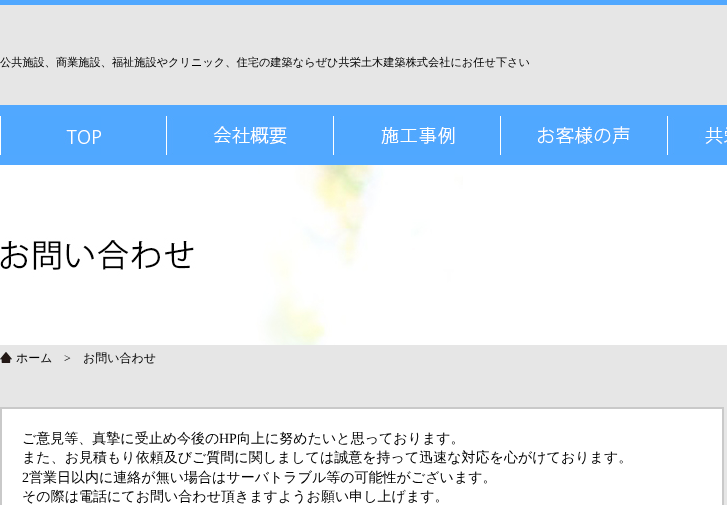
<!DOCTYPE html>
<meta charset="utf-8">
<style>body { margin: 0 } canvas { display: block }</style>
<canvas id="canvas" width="727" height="505"></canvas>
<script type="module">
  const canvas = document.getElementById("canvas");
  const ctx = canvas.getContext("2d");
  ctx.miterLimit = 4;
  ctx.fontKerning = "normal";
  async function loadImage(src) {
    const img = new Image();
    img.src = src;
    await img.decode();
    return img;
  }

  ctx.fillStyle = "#e6e6e6";
  ctx.fillRect(0, 0, 727, 505);
  ctx.fillStyle = "#51a8ff";
  ctx.fillRect(0, 0, 727, 5);
  ctx.font = "500 11.2px WenQuanYi Zen Hei";
  ctx.fillStyle = "#000000";
  ctx.fillText("公共施設、商業施設、福祉施設やクリニック、住宅の建築ならぜひ共栄土木建築株式会社にお任せ下さい", 0, 66);
  ctx.fillStyle = "#51a8ff";
  ctx.fillRect(0, 105, 727, 60);
  ctx.drawImage(await loadImage("img1.png"), 0, 116, 101, 39);
  ctx.drawImage(await loadImage("img2.png"), 166, 116, 121, 39);
  ctx.drawImage(await loadImage("img3.png"), 333, 116, 122, 39);
  ctx.drawImage(await loadImage("img4.png"), 500, 116, 130, 39);
  ctx.drawImage(await loadImage("img5.png"), 667, 116, 60, 39);
  ctx.fillStyle = "#ffffff";
  ctx.fillRect(463, 165, 264, 180);
  ctx.drawImage(await loadImage("img6.png"), 0, 165, 463, 180);
  ctx.drawImage(await loadImage("img7.png"), 0, 352, 12, 11);
  ctx.font = "500 12px WenQuanYi Zen Hei";
  ctx.fillStyle = "#000000";
  ctx.fillText("ホーム", 16, 362);
  ctx.font = "12px Liberation Serif";
  ctx.fillText(">", 64, 362);
  ctx.font = "500 12px WenQuanYi Zen Hei";
  ctx.fillText("お問い合わせ", 83, 362);
  ctx.fillStyle = "#ffffff";
  ctx.beginPath();
  ctx.rect(1, 408, 722, 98);
  ctx.fill();
  ctx.strokeStyle = "#c9c9c9";
  ctx.lineWidth = 2;
  ctx.stroke();
  ctx.font = "500 14px WenQuanYi Zen Hei";
  ctx.fillStyle = "#000000";
  ctx.fillText("ご意見等、真摯に受止め今後の", 22, 443);
  ctx.font = "14px Liberation Serif";
  ctx.fillText("HP", 219, 443);
  ctx.font = "500 14px WenQuanYi Zen Hei";
  ctx.fillText("向上に努めたいと思っております。", 237, 443);
  ctx.fillText("また、お見積もり依頼及びご質問に関しましては誠意を持って迅速な対応を心がけております。", 22, 462);
  ctx.font = "14px Liberation Serif";
  ctx.fillText("2", 22, 482);
  ctx.font = "500 14px WenQuanYi Zen Hei";
  ctx.fillText("営業日以内に連絡が無い場合はサーバトラブル等の可能性がございます。", 29, 482);
  ctx.fillText("その際は電話にてお問い合わせ頂きますようお願い申し上げます。", 22, 501);
</script>
